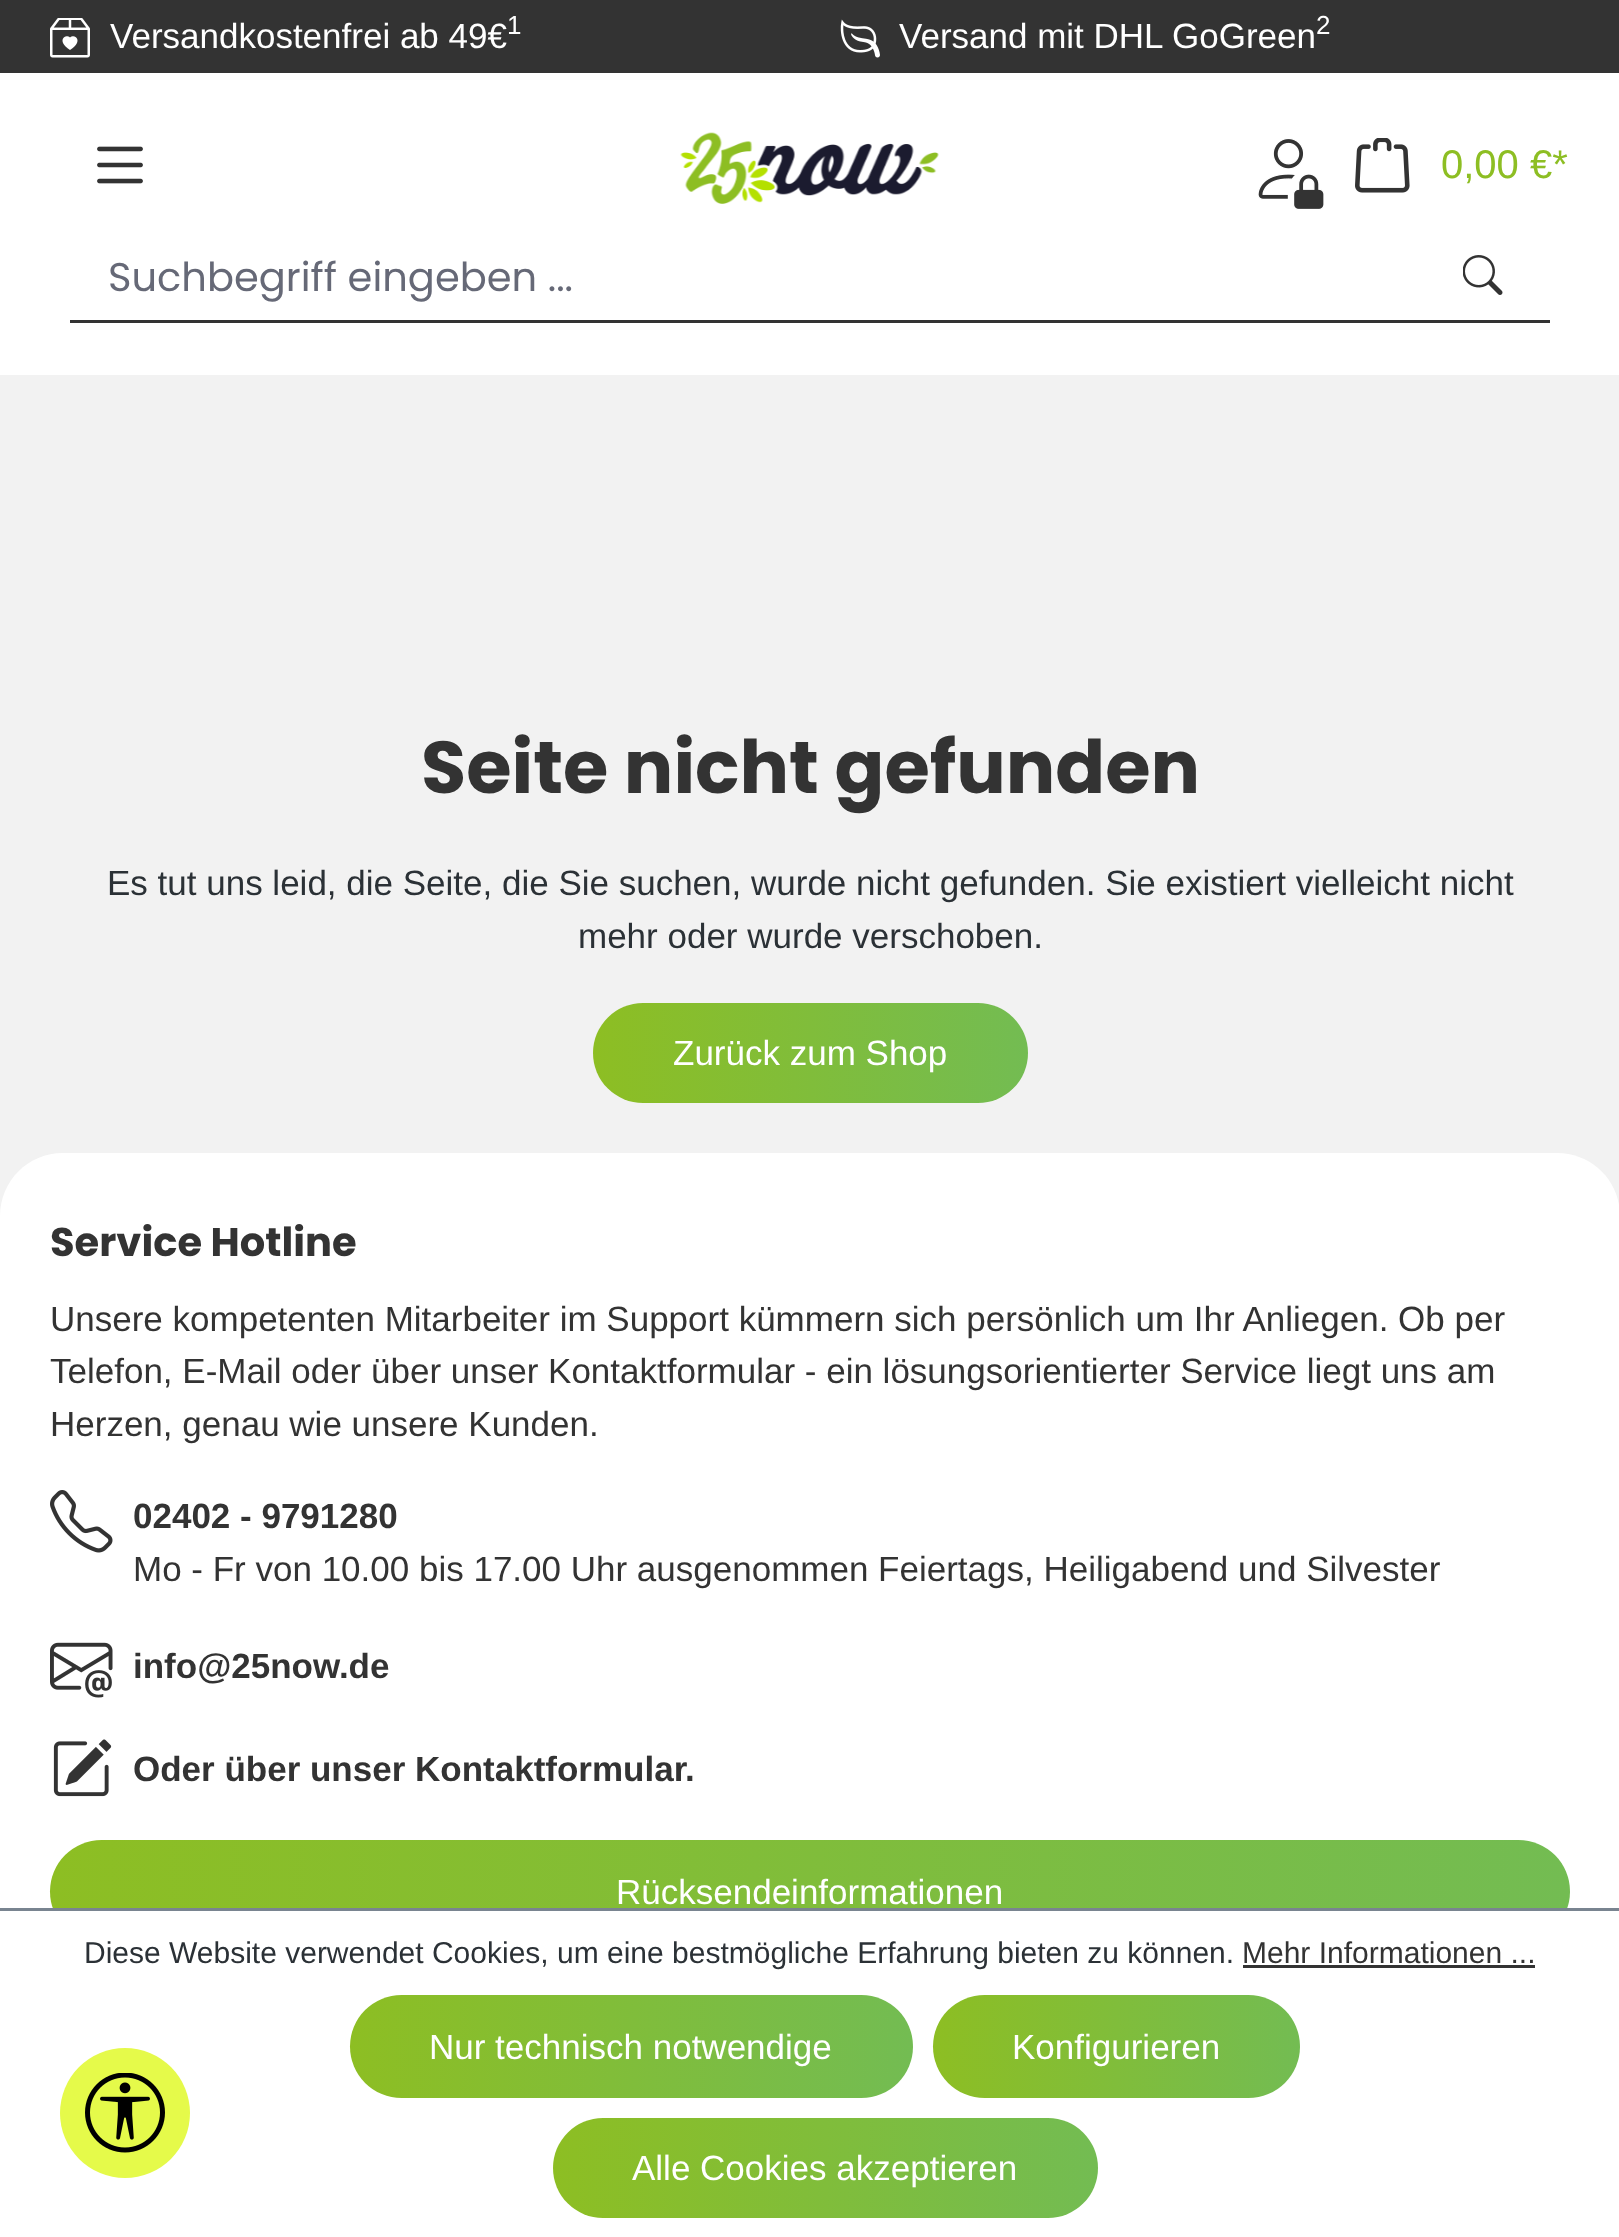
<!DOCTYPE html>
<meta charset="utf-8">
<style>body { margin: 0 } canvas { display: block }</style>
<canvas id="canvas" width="1619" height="2237"></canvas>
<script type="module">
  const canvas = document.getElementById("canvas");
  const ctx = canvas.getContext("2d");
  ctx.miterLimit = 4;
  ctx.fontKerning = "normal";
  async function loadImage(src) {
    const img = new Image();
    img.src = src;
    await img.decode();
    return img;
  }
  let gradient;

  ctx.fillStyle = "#f2f2f2";
  ctx.fillRect(0, 0, 1619, 2237);
  ctx.fillStyle = "#333333";
  ctx.fillRect(0, 0, 1619, 73);
  ctx.drawImage(await loadImage("img1.png"), 50, 18, 40, 40);
  ctx.font = "35px Liberation Sans";
  ctx.fillStyle = "#ffffff";
  ctx.fillText("Versandkostenfrei ab 49€", 110, 48);
  ctx.font = "26px Liberation Sans";
  ctx.fillText("1", 507, 34);
  ctx.drawImage(await loadImage("img2.png"), 840, 19, 40, 39);
  ctx.font = "35px Liberation Sans";
  ctx.fillText("Versand mit DHL GoGreen", 899, 48);
  ctx.font = "26px Liberation Sans";
  ctx.fillText("2", 1316, 34);
  ctx.fillRect(0, 73, 1619, 302);
  ctx.drawImage(await loadImage("img3.png"), 97, 146, 46, 38);
  ctx.drawImage(await loadImage("img4.png"), 680, 132, 259, 72);
  ctx.drawImage(await loadImage("img5.png"), 1258, 138, 66, 72);
  ctx.drawImage(await loadImage("img6.png"), 1355, 138, 55, 55);
  ctx.font = "40px Liberation Sans";
  ctx.fillStyle = "#8dbe23";
  ctx.fillText("0,00 €*", 1441, 178);
  ctx.fillStyle = "#333333";
  ctx.fillRect(70, 320, 1480, 3);
  ctx.font = "40px Poppins";
  ctx.fillStyle = "#666977";
  ctx.fillText("Suchbegriff eingeben ...", 108, 291);
  ctx.drawImage(await loadImage("img7.png"), 1463, 255, 40, 40);
  ctx.font = "bold 73.5px Poppins";
  ctx.fillStyle = "#333333";
  ctx.fillText("Seite nicht gefunden", 421, 793);
  ctx.font = "35px Liberation Sans";
  ctx.fillStyle = "#2b3136";
  ctx.fillText("Es tut uns leid, die Seite, die Sie suchen, wurde nicht gefunden. Sie existiert vielleicht nicht", 107, 895);
  ctx.fillText("mehr oder wurde verschoben.", 578, 948);
  gradient = ctx.createLinearGradient(593, 1053, 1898, 1053);
  gradient.addColorStop(0, "#8dbe23");
  gradient.addColorStop(0.5, "#66bb6a");
  gradient.addColorStop(1, "#8dbe23");
  ctx.fillStyle = gradient;
  ctx.beginPath();
  ctx.roundRect(593, 1003, 435, 100, 50);
  ctx.fill();
  ctx.fillStyle = "#ffffff";
  ctx.fillText("Zurück zum Shop", 673, 1065);
  ctx.beginPath();
  ctx.moveTo(63, 1153);
  ctx.lineTo(1557, 1153);
  ctx.bezierCurveTo(1592, 1153, 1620, 1181, 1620, 1216);
  ctx.lineTo(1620, 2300);
  ctx.lineTo(0, 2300);
  ctx.lineTo(0, 1216);
  ctx.bezierCurveTo(0, 1181, 28, 1153, 63, 1153);
  ctx.closePath();
  ctx.fill();
  ctx.font = "bold 40px Poppins";
  ctx.fillStyle = "#333333";
  ctx.fillText("Service Hotline", 50, 1256);
  ctx.font = "35px Liberation Sans";
  ctx.fillText("Unsere kompetenten Mitarbeiter im Support kümmern sich persönlich um Ihr Anliegen. Ob per", 50, 1331);
  ctx.fillText("Telefon, E-Mail oder über unser Kontaktformular - ein lösungsorientierter Service liegt uns am", 50, 1383);
  ctx.fillText("Herzen, genau wie unsere Kunden.", 50, 1436);
  ctx.drawImage(await loadImage("img8.png"), 50, 1490, 63, 63);
  ctx.font = "bold 35px Liberation Sans";
  ctx.fillText("02402 - 9791280", 133, 1528);
  ctx.font = "35px Liberation Sans";
  ctx.fillText("Mo - Fr von 10.00 bis 17.00 Uhr ausgenommen Feiertags, Heiligabend und Silvester", 133, 1581);
  ctx.drawImage(await loadImage("img9.png"), 50, 1642, 63, 56);
  ctx.font = "bold 35px Liberation Sans";
  ctx.fillText("info@25now.de", 133, 1678);
  ctx.drawImage(await loadImage("img10.png"), 53, 1739, 59, 58);
  ctx.fillText("Oder über unser Kontaktformular", 133, 1781);
  ctx.fillText(".", 685, 1781);
  gradient = ctx.createLinearGradient(50, 1891, 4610, 1891);
  gradient.addColorStop(0, "#8dbe23");
  gradient.addColorStop(0.5, "#66bb6a");
  gradient.addColorStop(1, "#8dbe23");
  ctx.fillStyle = gradient;
  ctx.beginPath();
  ctx.roundRect(50, 1840, 1520, 103, 51.5);
  ctx.fill();
  ctx.font = "35px Liberation Sans";
  ctx.fillStyle = "#ffffff";
  ctx.fillText("Rücksendeinformationen", 616, 1904);
  ctx.fillRect(53, 1911, 1514, 32);
  ctx.fillStyle = "#798490";
  ctx.fillRect(0, 1908, 1619, 3);
  ctx.font = "30px Liberation Sans";
  ctx.fillStyle = "#2b3136";
  ctx.fillText("Diese Website verwendet Cookies, um eine bestmögliche Erfahrung bieten zu können.", 84, 1963);
  ctx.fillStyle = "#333333";
  ctx.fillText("Mehr Informationen ...", 1242, 1963);
  ctx.fillRect(1243, 1965, 292, 3);
  gradient = ctx.createLinearGradient(350, 2046, 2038, 2046);
  gradient.addColorStop(0, "#8dbe23");
  gradient.addColorStop(0.5, "#66bb6a");
  gradient.addColorStop(1, "#8dbe23");
  ctx.fillStyle = gradient;
  ctx.beginPath();
  ctx.roundRect(350, 1995, 563, 103, 51.5);
  ctx.fill();
  ctx.font = "35px Liberation Sans";
  ctx.fillStyle = "#ffffff";
  ctx.fillText("Nur technisch notwendige", 429, 2059);
  gradient = ctx.createLinearGradient(933, 2046, 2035, 2046);
  gradient.addColorStop(0, "#8dbe23");
  gradient.addColorStop(0.5, "#66bb6a");
  gradient.addColorStop(1, "#8dbe23");
  ctx.fillStyle = gradient;
  ctx.beginPath();
  ctx.roundRect(933, 1995, 367, 103, 51.5);
  ctx.fill();
  ctx.fillStyle = "#ffffff";
  ctx.fillText("Konfigurieren", 1012, 2059);
  gradient = ctx.createLinearGradient(553, 2168, 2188, 2168);
  gradient.addColorStop(0, "#8dbe23");
  gradient.addColorStop(0.5, "#66bb6a");
  gradient.addColorStop(1, "#8dbe23");
  ctx.fillStyle = gradient;
  ctx.beginPath();
  ctx.roundRect(553, 2118, 545, 100, 50);
  ctx.fill();
  ctx.fillStyle = "#ffffff";
  ctx.fillText("Alle Cookies akzeptieren", 632, 2180);
  ctx.fillStyle = "#e5fa4a";
  ctx.beginPath();
  ctx.arc(125, 2113, 65, 0, Math.PI * 2);
  ctx.fill();
  ctx.drawImage(await loadImage("img11.png"), 85, 2073, 80, 80);
</script>
